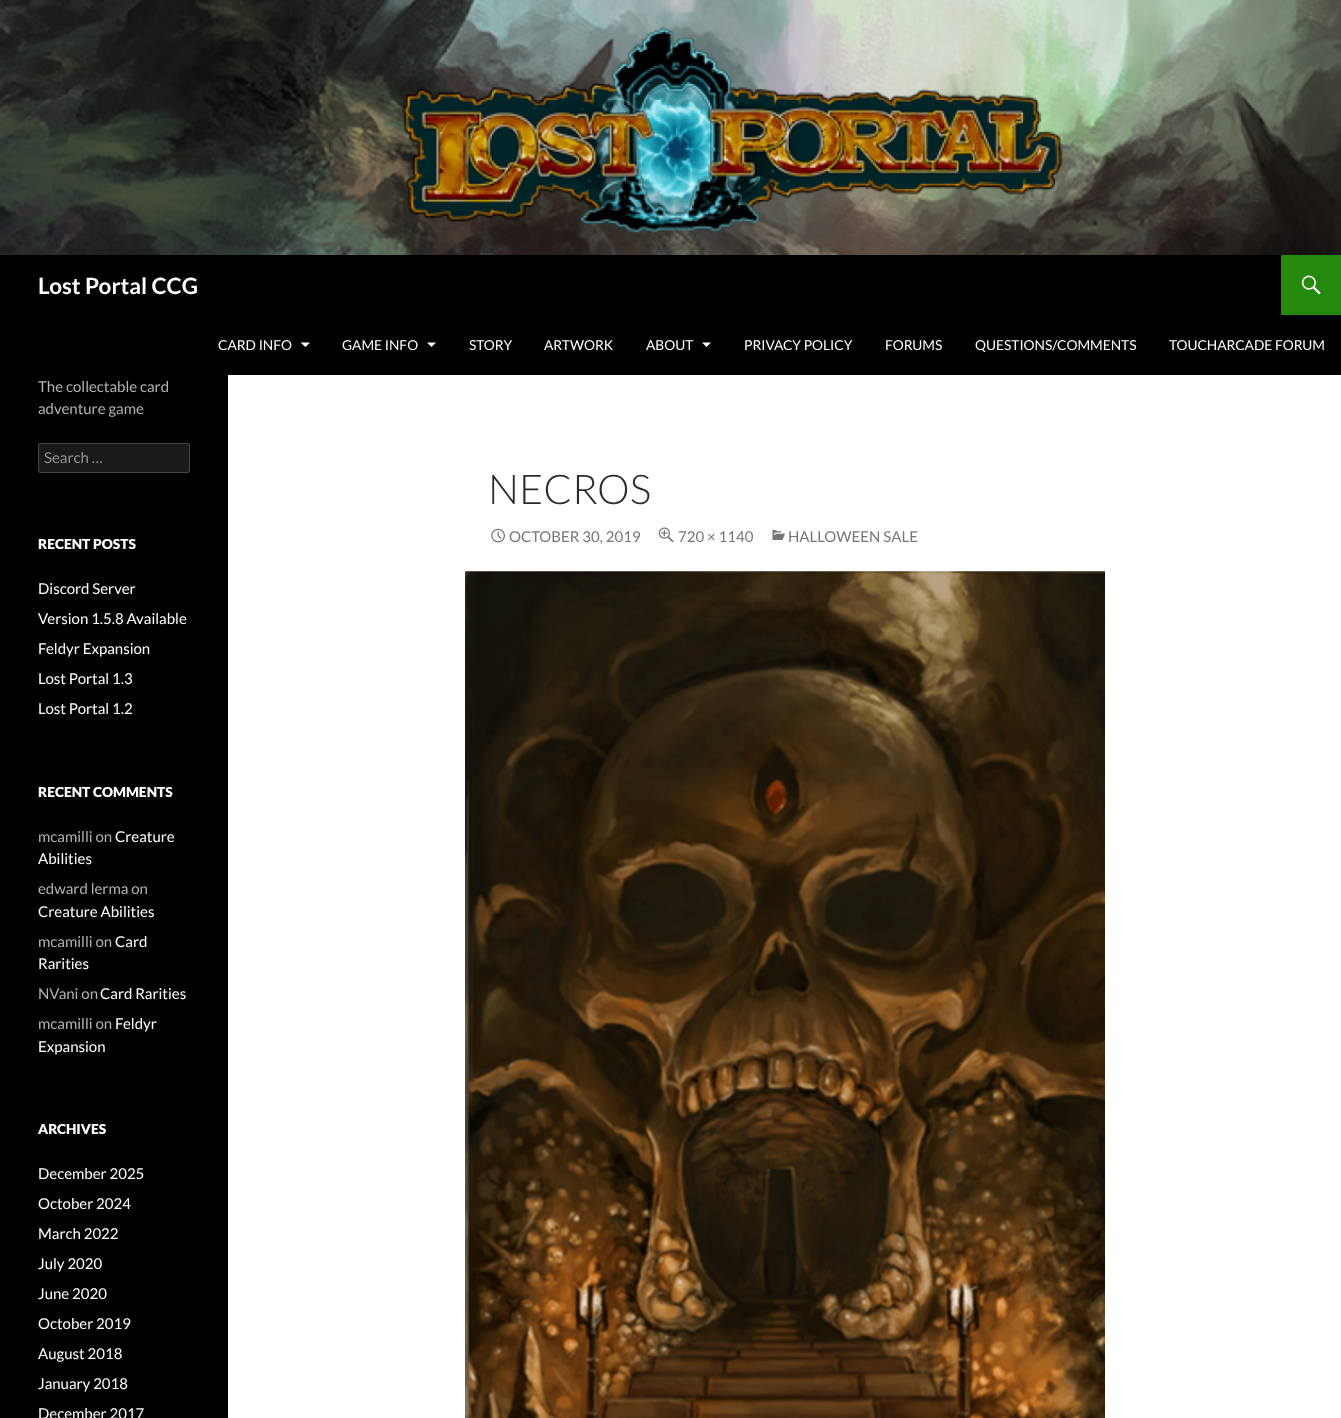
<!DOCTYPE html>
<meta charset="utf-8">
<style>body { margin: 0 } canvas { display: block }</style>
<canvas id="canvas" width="1341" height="1418"></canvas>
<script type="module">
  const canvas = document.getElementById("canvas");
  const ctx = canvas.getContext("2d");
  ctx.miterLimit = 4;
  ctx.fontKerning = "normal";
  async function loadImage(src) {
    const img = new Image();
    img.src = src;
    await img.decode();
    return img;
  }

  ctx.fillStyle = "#ffffff";
  ctx.fillRect(0, 0, 1341, 1418);
  ctx.drawImage(await loadImage("img1.png"), 0, 0, 1341, 255);
  ctx.fillStyle = "#000000";
  ctx.fillRect(0, 255, 1341, 120);
  ctx.font = "bold 22.5px Lato";
  ctx.fillStyle = "#ffffff";
  ctx.fillText("Lost Portal CCG", 38, 294);
  ctx.fillStyle = "#24890d";
  ctx.fillRect(1281, 255, 60, 60);
  ctx.drawImage(await loadImage("img2.png"), 1301, 275, 20, 20);
  ctx.font = "13.75px Lato";
  ctx.fillStyle = "#ffffff";
  ctx.fillText("CARD INFO", 218, 350);
  ctx.beginPath();
  ctx.moveTo(300.5, 342.5);
  ctx.lineTo(305.5, 347);
  ctx.lineTo(310, 342.5);
  ctx.closePath();
  ctx.fill();
  ctx.fillText("GAME INFO", 342, 350);
  ctx.beginPath();
  ctx.moveTo(427, 342.5);
  ctx.lineTo(431.5, 347);
  ctx.lineTo(436, 342.5);
  ctx.closePath();
  ctx.fill();
  ctx.fillText("STORY", 469, 350);
  ctx.fillText("ARTWORK", 544, 350);
  ctx.fillText("ABOUT", 646, 350);
  ctx.beginPath();
  ctx.moveTo(702, 342.5);
  ctx.lineTo(706.5, 347);
  ctx.lineTo(711, 342.5);
  ctx.closePath();
  ctx.fill();
  ctx.fillText("PRIVACY POLICY", 744, 350);
  ctx.fillText("FORUMS", 885, 350);
  ctx.fillText("QUESTIONS/COMMENTS", 975, 350);
  ctx.fillText("TOUCHARCADE FORUM", 1169, 350);
  ctx.fillStyle = "#000000";
  ctx.fillRect(0, 375, 228, 1043);
  ctx.font = "15px Lato";
  ctx.fillStyle = "#b3b3b3";
  ctx.fillText("The collectable card", 38, 392);
  ctx.fillText("adventure game", 38, 414);
  ctx.fillStyle = "#1a1a1a";
  ctx.beginPath();
  ctx.roundRect(38, 443, 152, 30, 2.5);
  ctx.fill();
  ctx.beginPath();
  ctx.roundRect(38.5, 443.5, 151, 29, 2);
  ctx.strokeStyle = "rgba(255, 255, 255, 0.2)";
  ctx.stroke();
  ctx.fillStyle = "#939393";
  ctx.fillText("Search …", 44, 463);
  ctx.font = "900 13.75px Lato";
  ctx.fillStyle = "#ffffff";
  ctx.fillText("RECENT POSTS", 38, 549);
  ctx.font = "15px Lato";
  ctx.fillText("Discord Server", 38, 594);
  ctx.fillText("Version 1.5.8 Available", 38, 624);
  ctx.fillText("Feldyr Expansion", 38, 654);
  ctx.fillText("Lost Portal 1.3", 38, 684);
  ctx.fillText("Lost Portal 1.2", 38, 714);
  ctx.font = "900 13.75px Lato";
  ctx.fillText("RECENT COMMENTS", 38, 797);
  ctx.font = "15px Lato";
  ctx.fillStyle = "#b3b3b3";
  ctx.fillText("mcamilli on", 38, 842);
  ctx.fillStyle = "#ffffff";
  ctx.fillText("Creature", 115, 842);
  ctx.fillText("Abilities", 38, 864);
  ctx.fillStyle = "#b3b3b3";
  ctx.fillText("edward lerma on", 38, 894);
  ctx.fillStyle = "#ffffff";
  ctx.fillText("Creature Abilities", 38, 917);
  ctx.fillStyle = "#b3b3b3";
  ctx.fillText("mcamilli on", 38, 947);
  ctx.fillStyle = "#ffffff";
  ctx.fillText("Card", 115, 947);
  ctx.fillText("Rarities", 38, 969);
  ctx.fillStyle = "#b3b3b3";
  ctx.fillText("NVani on", 38, 999);
  ctx.fillStyle = "#ffffff";
  ctx.fillText("Card Rarities", 100, 999);
  ctx.fillStyle = "#b3b3b3";
  ctx.fillText("mcamilli on", 38, 1029);
  ctx.fillStyle = "#ffffff";
  ctx.fillText("Feldyr", 115, 1029);
  ctx.fillText("Expansion", 38, 1052);
  ctx.font = "900 13.75px Lato";
  ctx.fillText("ARCHIVES", 38, 1134);
  ctx.font = "15px Lato";
  ctx.fillText("December 2025", 38, 1179);
  ctx.fillText("October 2024", 38, 1209);
  ctx.fillText("March 2022", 38, 1239);
  ctx.fillText("July 2020", 38, 1269);
  ctx.fillText("June 2020", 38, 1299);
  ctx.fillText("October 2019", 38, 1329);
  ctx.fillText("August 2018", 38, 1359);
  ctx.fillText("January 2018", 38, 1389);
  ctx.fillText("December 2017", 38, 1419);
  ctx.font = "300 41px Lato";
  ctx.fillStyle = "#2b2b2b";
  ctx.fillText("NECROS", 488, 504);
  ctx.drawImage(await loadImage("img3.png"), 491, 528, 14, 15);
  ctx.font = "15px Lato";
  ctx.fillStyle = "#767676";
  ctx.fillText("OCTOBER 30, 2019", 509, 542);
  ctx.drawImage(await loadImage("img4.png"), 658, 527, 16, 16);
  ctx.fillText("720 × 1140", 678, 542);
  ctx.drawImage(await loadImage("img5.png"), 772, 530, 13, 10);
  ctx.fillText("HALLOWEEN SALE", 788, 542);
  ctx.drawImage(await loadImage("img6.png"), 465, 571, 640, 847);
</script>
